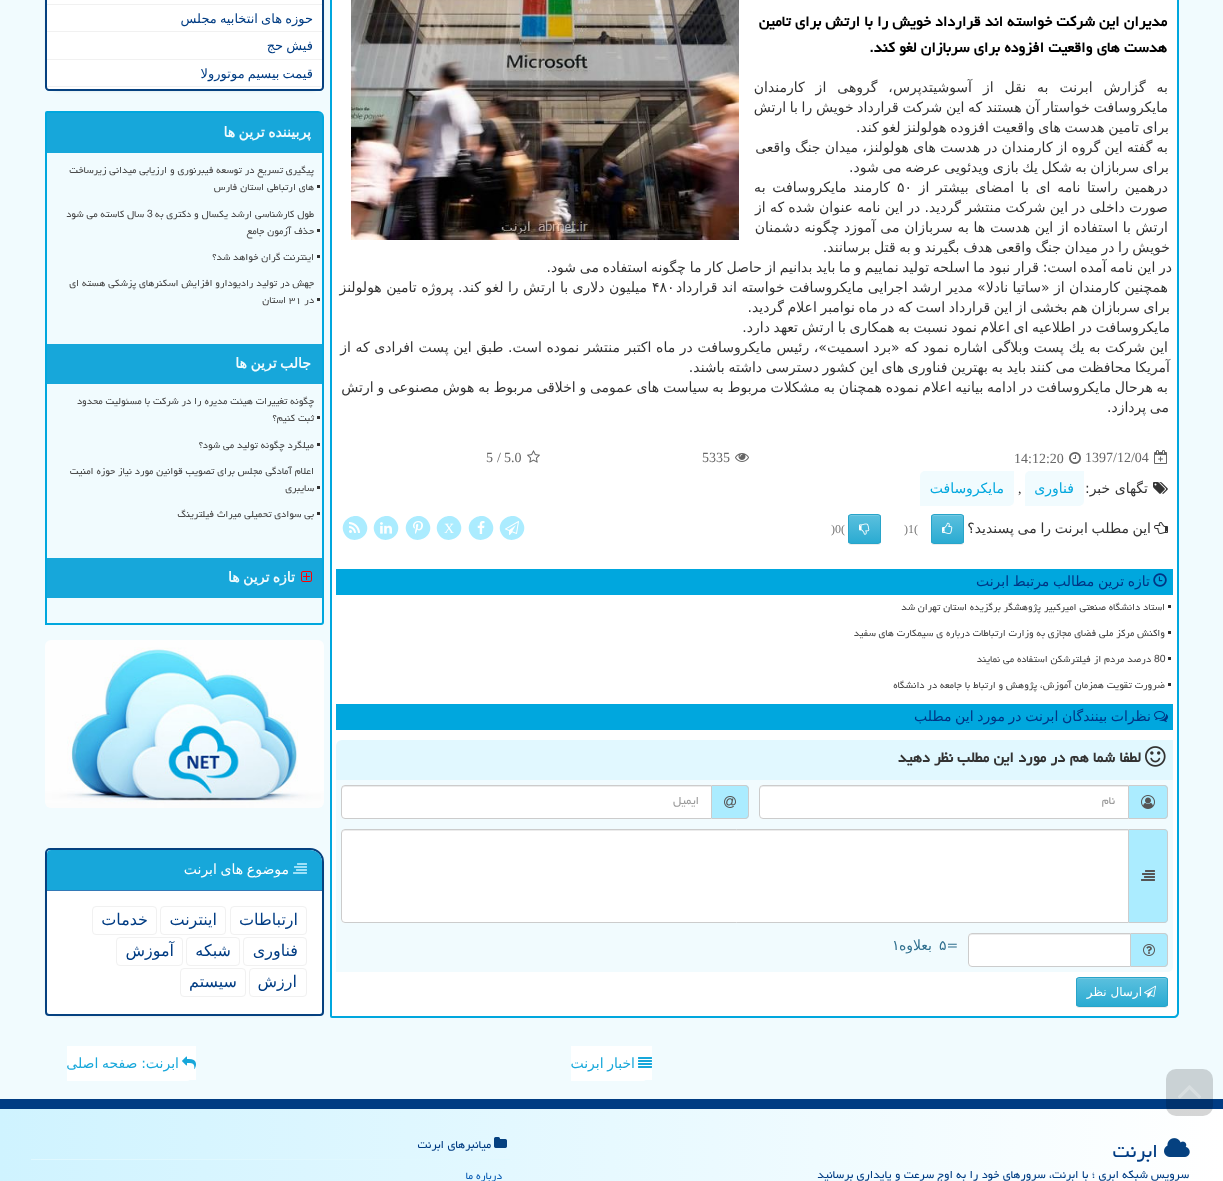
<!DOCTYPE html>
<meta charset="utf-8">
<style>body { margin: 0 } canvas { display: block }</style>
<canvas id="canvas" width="1223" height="1181"></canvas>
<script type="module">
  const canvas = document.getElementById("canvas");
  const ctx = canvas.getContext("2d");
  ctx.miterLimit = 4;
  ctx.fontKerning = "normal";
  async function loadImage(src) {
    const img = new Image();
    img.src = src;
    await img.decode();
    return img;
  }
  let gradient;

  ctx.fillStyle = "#f1fbfe";
  ctx.fillRect(0, 0, 1223, 1181);
  ctx.fillStyle = "#ffffff";
  ctx.beginPath();
  ctx.moveTo(333, -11);
  ctx.lineTo(1169, -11);
  ctx.bezierCurveTo(1174, -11, 1178, -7, 1178, -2);
  ctx.lineTo(1178, 1013);
  ctx.bezierCurveTo(1178, 1015, 1176, 1017, 1174, 1017);
  ctx.lineTo(332, 1017);
  ctx.bezierCurveTo(331.5, 1017, 331, 1016.5, 331, 1016);
  ctx.lineTo(331, -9);
  ctx.bezierCurveTo(331, -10, 332, -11, 333, -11);
  ctx.closePath();
  ctx.fill();
  ctx.strokeStyle = "#00a7de";
  ctx.lineWidth = 2;
  ctx.stroke();
  ctx.direction = "rtl";
  ctx.font = "bold 18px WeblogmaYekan";
  ctx.fillStyle = "#000000";
  ctx.fillText("مدیران این شركت خواسته اند قرارداد خویش را با ارتش برای تامین", 1167, 26);
  ctx.fillText("هدست های واقعیت افزوده برای سربازان لغو كند.", 1167, 52);
  ctx.drawImage(await loadImage("img1.png"), 351, 0, 388, 240);
  ctx.wordSpacing = "6.5px";
  ctx.font = "14px DejaVu Sans";
  ctx.fillStyle = "#333333";
  ctx.fillText("به گزارش ابرنت به نقل از آسوشیتدپرس، گروهی از كارمندان", 1168, 92);
  ctx.wordSpacing = "-0.75px";
  ctx.fillText("مایكروسافت خواستار آن هستند كه این شركت قرارداد خویش را با ارتش", 1168, 112);
  ctx.wordSpacing = "-0.8px";
  ctx.fillText("برای تامین هدست های واقعیت افزوده هولولنز لغو كند.", 1169, 132);
  ctx.wordSpacing = "-0.25px";
  ctx.fillText("به گفته این گروه از كارمندان در هدست های هولولنز، میدان جنگ واقعی", 1168, 152);
  ctx.wordSpacing = "-0.8px";
  ctx.fillText("برای سربازان به شكل یك بازی ویدئویی عرضه می شود.", 1169, 172);
  ctx.wordSpacing = "2.25px";
  ctx.fillText("درهمین راستا نامه ای با امضای بیشتر از", 1168, 192);
  ctx.wordSpacing = "0px";
  ctx.direction = "ltr";
  ctx.fillText("۵۰", 897, 192);
  ctx.wordSpacing = "2.25px";
  ctx.direction = "rtl";
  ctx.fillText("كارمند مایكروسافت به", 890, 192);
  ctx.wordSpacing = "-0.2px";
  ctx.fillText("صورت داخلی در این شركت منتشر گردید. در این نامه عنوان شده كه از", 1168, 212);
  ctx.wordSpacing = "0.25px";
  ctx.fillText("ارتش با استفاده از این هدست ها به سربازان می آموزد چگونه دشمنان", 1168, 232);
  ctx.wordSpacing = "-0.8px";
  ctx.fillText("خویش را در میدان جنگ واقعی هدف بگیرند و به قتل برسانند.", 1170, 252);
  ctx.fillText("در این نامه آمده است: قرار نبود ما اسلحه تولید نماییم و ما باید بدانیم از حاصل كار ما چگونه استفاده می شود.", 1172, 272);
  ctx.wordSpacing = "0px";
  ctx.fillText("همچنین كارمندان از «ساتیا نادلا» مدیر ارشد اجرایی مایكروسافت خواسته اند قرارداد", 1168, 292);
  ctx.direction = "ltr";
  ctx.fillText("۴۸۰", 652, 292);
  ctx.direction = "rtl";
  ctx.fillText("میلیون دلاری با ارتش را لغو كند. پروژه تامین هولولنز", 647, 292);
  ctx.wordSpacing = "-0.8px";
  ctx.fillText("برای سربازان هم بخشی از این قرارداد است كه در ماه نوامبر اعلام گردید.", 1170, 312);
  ctx.fillText("مایكروسافت در اطلاعیه ای اعلام نمود نسبت به همكاری با ارتش تعهد دارد.", 1170, 332);
  ctx.wordSpacing = "0.2px";
  ctx.fillText("این شركت به یك پست وبلاگی اشاره نمود كه «برد اسمیت»، رئیس مایكروسافت در ماه اكتبر منتشر نموده است. طبق این پست افرادی كه از", 1168, 352);
  ctx.wordSpacing = "-0.8px";
  ctx.fillText("آمریكا محافظت می كنند باید به بهترین فناوری های این كشور دسترسی داشته باشند.", 1170, 372);
  ctx.wordSpacing = "-0.7px";
  ctx.fillText("به هرحال مایكروسافت در ادامه بیانیه اعلام نموده همچنان به مشكلات مربوط به سیاست های عمومی و اخلاقی مربوط به هوش مصنوعی و ارتش", 1168, 392);
  ctx.wordSpacing = "-0.8px";
  ctx.fillText("می پردازد.", 1169, 412);
  ctx.drawImage(await loadImage("img2.png"), 1154, 450, 13, 14);
  ctx.wordSpacing = "0px";
  ctx.direction = "ltr";
  ctx.font = "14px Liberation Serif";
  ctx.fillStyle = "#666666";
  ctx.fillText("1397/12/04", 1085, 462);
  ctx.drawImage(await loadImage("img3.png"), 1069, 452, 12, 12);
  ctx.fillText("14:12:20", 1014, 463);
  ctx.drawImage(await loadImage("img4.png"), 735, 453, 14, 9);
  ctx.fillText("5335", 702, 462);
  ctx.drawImage(await loadImage("img5.png"), 527, 450, 13, 13);
  ctx.fillText("5.0", 504, 462);
  ctx.fillText("/", 497, 462);
  ctx.fillText("5", 486, 462);
  ctx.drawImage(await loadImage("img6.png"), 1153, 482, 15, 12);
  ctx.direction = "rtl";
  ctx.font = "14px DejaVu Sans";
  ctx.fillStyle = "#333333";
  ctx.fillText("تگهای خبر:", 1148, 493);
  ctx.fillStyle = "#f1fbfe";
  ctx.beginPath();
  ctx.roundRect(1025, 471, 59, 35, [5, 0, 5, 0]);
  ctx.fill();
  ctx.fillStyle = "#00a7de";
  ctx.fillText("فناوری", 1074, 493);
  ctx.direction = "ltr";
  ctx.font = "14px Liberation Serif";
  ctx.fillStyle = "#333333";
  ctx.fillText(",", 1018, 493);
  ctx.fillStyle = "#f1fbfe";
  ctx.beginPath();
  ctx.roundRect(920, 471, 94, 35, [5, 0, 5, 0]);
  ctx.fill();
  ctx.direction = "rtl";
  ctx.font = "14px DejaVu Sans";
  ctx.fillStyle = "#00a7de";
  ctx.fillText("مایكروسافت", 1004, 493);
  ctx.drawImage(await loadImage("img7.png"), 1154, 522, 14, 12);
  ctx.wordSpacing = "-0.8px";
  ctx.fillStyle = "#333333";
  ctx.fillText("این مطلب ابرنت را می پسندید؟", 1151, 533);
  ctx.fillStyle = "rgba(0, 0, 0, 0.07)";
  ctx.filter = "blur(0.5px)";
  ctx.beginPath();
  ctx.roundRect(931, 515, 33, 30, 3);
  ctx.fill();
  ctx.filter = "none";
  ctx.save();
  ctx.beginPath();
  ctx.roundRect(931, 514, 33, 30, 3);
  ctx.clip();
  gradient = ctx.createLinearGradient(948, 515, 948, 543);
  gradient.addColorStop(0, "#5bc0de");
  gradient.addColorStop(1, "#2aabd2");
  ctx.fillStyle = gradient;
  ctx.fillRect(931, 515, 33, 28);
  ctx.restore();
  ctx.fillStyle = "#73c9e3";
  ctx.beginPath();
  ctx.moveTo(934, 516);
  ctx.lineTo(961, 516);
  ctx.bezierCurveTo(962, 516, 963, 517, 963, 518);
  ctx.bezierCurveTo(963, 514, 960, 515, 956.5, 515);
  ctx.lineTo(938.5, 515);
  ctx.bezierCurveTo(935, 515, 932, 514, 932, 518);
  ctx.bezierCurveTo(932, 517, 933, 516, 934, 516);
  ctx.closePath();
  ctx.fill();
  ctx.beginPath();
  ctx.roundRect(931.5, 514.5, 32, 29, 2.5);
  ctx.strokeStyle = "#28a4c9";
  ctx.lineWidth = 1;
  ctx.stroke();
  ctx.drawImage(await loadImage("img8.png"), 942, 522, 11, 12);
  ctx.wordSpacing = "0px";
  ctx.direction = "ltr";
  ctx.font = "12px Liberation Serif";
  ctx.fillStyle = "#777777";
  ctx.fillText(")1(", 904, 533);
  ctx.fillStyle = "rgba(0, 0, 0, 0.07)";
  ctx.filter = "blur(0.5px)";
  ctx.beginPath();
  ctx.roundRect(848, 515, 33, 30, 3);
  ctx.fill();
  ctx.filter = "none";
  ctx.save();
  ctx.beginPath();
  ctx.roundRect(848, 514, 33, 30, 3);
  ctx.clip();
  gradient = ctx.createLinearGradient(865, 515, 865, 543);
  gradient.addColorStop(0, "#5bc0de");
  gradient.addColorStop(1, "#2aabd2");
  ctx.fillStyle = gradient;
  ctx.fillRect(848, 515, 33, 28);
  ctx.restore();
  ctx.fillStyle = "#73c9e3";
  ctx.beginPath();
  ctx.moveTo(851, 516);
  ctx.lineTo(878, 516);
  ctx.bezierCurveTo(879, 516, 880, 517, 880, 518);
  ctx.bezierCurveTo(880, 514, 877, 515, 873.5, 515);
  ctx.lineTo(855.5, 515);
  ctx.bezierCurveTo(852, 515, 849, 514, 849, 518);
  ctx.bezierCurveTo(849, 517, 850, 516, 851, 516);
  ctx.closePath();
  ctx.fill();
  ctx.beginPath();
  ctx.roundRect(848.5, 514.5, 32, 29, 2.5);
  ctx.stroke();
  ctx.drawImage(await loadImage("img9.png"), 859, 523, 11, 12);
  ctx.fillStyle = "#777777";
  ctx.fillText(")0(", 831, 533);
  ctx.fillStyle = "#abecff";
  ctx.beginPath();
  ctx.moveTo(522.5, 522);
  ctx.bezierCurveTo(530.5, 535.5, 509.5, 547.5, 501.5, 534);
  ctx.bezierCurveTo(493.5, 520.5, 514.5, 508.5, 522.5, 522);
  ctx.closePath();
  ctx.fill();
  ctx.drawImage(await loadImage("img10.png"), 505, 521, 14, 14);
  ctx.beginPath();
  ctx.moveTo(491.5, 522);
  ctx.bezierCurveTo(499.5, 535.5, 478.5, 547.5, 470.5, 534);
  ctx.bezierCurveTo(462.5, 520.5, 483.5, 508.5, 491.5, 522);
  ctx.closePath();
  ctx.fill();
  ctx.drawImage(await loadImage("img11.png"), 477, 521, 8, 13);
  ctx.beginPath();
  ctx.moveTo(459.5, 522);
  ctx.bezierCurveTo(467.5, 535.5, 446.5, 547.5, 438.5, 534);
  ctx.bezierCurveTo(430.5, 520.5, 451.5, 508.5, 459.5, 522);
  ctx.closePath();
  ctx.fill();
  ctx.font = "14px Liberation Serif";
  ctx.fillStyle = "#ffffff";
  ctx.fillText("X", 444, 533);
  ctx.fillStyle = "#abecff";
  ctx.beginPath();
  ctx.moveTo(428.5, 522);
  ctx.bezierCurveTo(436.5, 535.5, 415.5, 547.5, 407.5, 534);
  ctx.bezierCurveTo(399.5, 520.5, 420.5, 508.5, 428.5, 522);
  ctx.closePath();
  ctx.fill();
  ctx.drawImage(await loadImage("img12.png"), 413, 521, 10, 13);
  ctx.beginPath();
  ctx.moveTo(396.5, 522);
  ctx.bezierCurveTo(404.5, 535.5, 383.5, 547.5, 375.5, 534);
  ctx.bezierCurveTo(367.5, 520.5, 388.5, 508.5, 396.5, 522);
  ctx.closePath();
  ctx.fill();
  ctx.drawImage(await loadImage("img13.png"), 380, 522, 12, 12);
  ctx.beginPath();
  ctx.moveTo(365.5, 522);
  ctx.bezierCurveTo(373.5, 535.5, 352.5, 547.5, 344.5, 534);
  ctx.bezierCurveTo(336.5, 520.5, 357.5, 508.5, 365.5, 522);
  ctx.closePath();
  ctx.fill();
  ctx.drawImage(await loadImage("img14.png"), 349, 522, 11, 11);
  ctx.fillStyle = "#00a7de";
  ctx.fillRect(336, 569, 837, 26);
  ctx.drawImage(await loadImage("img15.png"), 1153, 573, 14, 14);
  ctx.wordSpacing = "-0.8px";
  ctx.direction = "rtl";
  ctx.font = "14px DejaVu Sans";
  ctx.fillStyle = "#003584";
  ctx.fillText("تازه ترین مطالب مرتبط ابرنت", 1150, 586);
  ctx.fillStyle = "#333333";
  ctx.fillRect(1168, 605, 3, 3);
  ctx.wordSpacing = "0px";
  ctx.font = "12px WeblogmaYekan";
  ctx.fillStyle = "#4a4a4a";
  ctx.fillText("استاد دانشگاه صنعتی امیرکبیر پژوهشگر برگزیده استان تهران شد", 1165, 610);
  ctx.fillStyle = "#333333";
  ctx.fillRect(1168, 631, 3, 3);
  ctx.fillStyle = "#4a4a4a";
  ctx.fillText("واکنش مرکز ملی فضای مجازی به وزارت ارتباطات درباره ی سیمکارت های سفید", 1165, 636);
  ctx.fillStyle = "#333333";
  ctx.fillRect(1168, 657, 3, 3);
  ctx.direction = "ltr";
  ctx.fillStyle = "#4a4a4a";
  ctx.fillText("80", 1154, 662);
  ctx.direction = "rtl";
  ctx.fillText("درصد مردم از فیلترشکن استفاده می نمایند", 1151, 662);
  ctx.fillStyle = "#333333";
  ctx.fillRect(1168, 683, 3, 3);
  ctx.fillStyle = "#4a4a4a";
  ctx.fillText("ضرورت تقویت همزمان آموزش، پژوهش و ارتباط با جامعه در دانشگاه", 1165, 688);
  ctx.fillStyle = "#00a7de";
  ctx.fillRect(336, 704, 837, 26);
  ctx.drawImage(await loadImage("img16.png"), 1154, 711, 14, 11);
  ctx.wordSpacing = "-0.8px";
  ctx.font = "14px DejaVu Sans";
  ctx.fillStyle = "#003584";
  ctx.fillText("نظرات بینندگان ابرنت در مورد این مطلب", 1151, 721);
  ctx.fillStyle = "#e1f8ff";
  ctx.beginPath();
  ctx.roundRect(336, 740, 837, 40, [6, 0, 0, 0]);
  ctx.fill();
  ctx.drawImage(await loadImage("img17.png"), 1145, 746, 21, 21);
  ctx.wordSpacing = "0px";
  ctx.font = "bold 18px WeblogmaYekan";
  ctx.fillStyle = "#333333";
  ctx.fillText("لطفا شما هم", 1141, 762);
  ctx.fillText("در مورد این مطلب", 1065, 762);
  ctx.fillText("نظر دهید", 953, 762);
  ctx.fillStyle = "#f1fbfe";
  ctx.beginPath();
  ctx.roundRect(336, 780, 837, 192, [0, 0, 5, 0]);
  ctx.fill();
  ctx.fillStyle = "#abecff";
  ctx.beginPath();
  ctx.roundRect(1129, 785, 39, 34, [0, 4, 4, 0]);
  ctx.fill();
  ctx.fillStyle = "#cccccc";
  ctx.beginPath();
  ctx.moveTo(1129, 785);
  ctx.lineTo(1164, 785);
  ctx.bezierCurveTo(1166, 785, 1168, 787, 1168, 789);
  ctx.lineTo(1168, 815);
  ctx.bezierCurveTo(1168, 817, 1166, 819, 1164, 819);
  ctx.lineTo(1129, 819);
  ctx.closePath();
  ctx.moveTo(1129, 786);
  ctx.lineTo(1164, 786);
  ctx.bezierCurveTo(1165.5, 786, 1167, 787.5, 1167, 789);
  ctx.lineTo(1167, 815);
  ctx.bezierCurveTo(1167, 816.5, 1165.5, 818, 1164, 818);
  ctx.lineTo(1129, 818);
  ctx.closePath();
  ctx.fill("evenodd");
  ctx.drawImage(await loadImage("img18.png"), 1141, 795, 14, 14);
  ctx.fillStyle = "#ffffff";
  ctx.beginPath();
  ctx.roundRect(759, 785, 370, 34, [4, 0, 0, 4]);
  ctx.fill();
  ctx.fillStyle = "#ececec";
  ctx.beginPath();
  ctx.moveTo(763, 787);
  ctx.lineTo(1128, 787);
  ctx.lineTo(1128, 786);
  ctx.lineTo(763, 786);
  ctx.bezierCurveTo(761, 786, 760, 787, 760, 789);
  ctx.lineTo(760, 790);
  ctx.bezierCurveTo(760, 788, 761, 787, 763, 787);
  ctx.closePath();
  ctx.fill();
  ctx.beginPath();
  ctx.roundRect(759.5, 785.5, 369, 33, [3.5, 0, 0, 3.5]);
  ctx.strokeStyle = "#cccccc";
  ctx.stroke();
  ctx.font = "14px WeblogmaYekan";
  ctx.fillStyle = "#999999";
  ctx.fillText("نام", 1115, 804);
  ctx.fillStyle = "#abecff";
  ctx.beginPath();
  ctx.roundRect(712, 785, 37, 34, [0, 4, 4, 0]);
  ctx.fill();
  ctx.fillStyle = "#cccccc";
  ctx.beginPath();
  ctx.moveTo(712, 785);
  ctx.lineTo(745, 785);
  ctx.bezierCurveTo(747, 785, 749, 787, 749, 789);
  ctx.lineTo(749, 815);
  ctx.bezierCurveTo(749, 817, 747, 819, 745, 819);
  ctx.lineTo(712, 819);
  ctx.closePath();
  ctx.moveTo(712, 786);
  ctx.lineTo(745, 786);
  ctx.bezierCurveTo(746.5, 786, 748, 787.5, 748, 789);
  ctx.lineTo(748, 815);
  ctx.bezierCurveTo(748, 816.5, 746.5, 818, 745, 818);
  ctx.lineTo(712, 818);
  ctx.closePath();
  ctx.fill("evenodd");
  ctx.drawImage(await loadImage("img19.png"), 724, 796, 12, 12);
  ctx.fillStyle = "#ffffff";
  ctx.beginPath();
  ctx.roundRect(341, 785, 371, 34, [4, 0, 0, 4]);
  ctx.fill();
  ctx.fillStyle = "#ececec";
  ctx.beginPath();
  ctx.moveTo(345, 787);
  ctx.lineTo(711, 787);
  ctx.lineTo(711, 786);
  ctx.lineTo(345, 786);
  ctx.bezierCurveTo(343, 786, 342, 787, 342, 789);
  ctx.lineTo(342, 790);
  ctx.bezierCurveTo(342, 788, 343, 787, 345, 787);
  ctx.closePath();
  ctx.fill();
  ctx.beginPath();
  ctx.roundRect(341.5, 785.5, 370, 33, [3.5, 0, 0, 3.5]);
  ctx.stroke();
  ctx.fillStyle = "#999999";
  ctx.fillText("ایمیل", 699, 804);
  ctx.fillStyle = "#abecff";
  ctx.beginPath();
  ctx.roundRect(1129, 829, 39, 94, [0, 4, 4, 0]);
  ctx.fill();
  ctx.fillStyle = "#cccccc";
  ctx.beginPath();
  ctx.moveTo(1129, 829);
  ctx.lineTo(1164, 829);
  ctx.bezierCurveTo(1166, 829, 1168, 831, 1168, 833);
  ctx.lineTo(1168, 919);
  ctx.bezierCurveTo(1168, 921, 1166, 923, 1164, 923);
  ctx.lineTo(1129, 923);
  ctx.closePath();
  ctx.moveTo(1129, 830);
  ctx.lineTo(1164, 830);
  ctx.bezierCurveTo(1166, 830, 1167, 831, 1167, 833);
  ctx.lineTo(1167, 919);
  ctx.bezierCurveTo(1167, 921, 1166, 922, 1164, 922);
  ctx.lineTo(1129, 922);
  ctx.closePath();
  ctx.fill("evenodd");
  ctx.drawImage(await loadImage("img20.png"), 1141, 870, 14, 11);
  ctx.fillStyle = "#ffffff";
  ctx.beginPath();
  ctx.roundRect(341, 829, 788, 94, [4, 0, 0, 4]);
  ctx.fill();
  ctx.fillStyle = "#ececec";
  ctx.beginPath();
  ctx.moveTo(345, 831);
  ctx.lineTo(1128, 831);
  ctx.lineTo(1128, 830);
  ctx.lineTo(345, 830);
  ctx.bezierCurveTo(343, 830, 342, 832, 342, 834);
  ctx.bezierCurveTo(342, 832, 343, 831, 345, 831);
  ctx.closePath();
  ctx.fill();
  ctx.beginPath();
  ctx.roundRect(341.5, 829.5, 787, 93, [3.5, 0, 0, 3.5]);
  ctx.stroke();
  ctx.fillStyle = "#abecff";
  ctx.beginPath();
  ctx.roundRect(1131, 933, 37, 34, [0, 4, 4, 0]);
  ctx.fill();
  ctx.fillStyle = "#cccccc";
  ctx.beginPath();
  ctx.moveTo(1131, 933);
  ctx.lineTo(1164, 933);
  ctx.bezierCurveTo(1166, 933, 1168, 935, 1168, 937);
  ctx.lineTo(1168, 963);
  ctx.bezierCurveTo(1168, 965, 1166, 967, 1164, 967);
  ctx.lineTo(1131, 967);
  ctx.closePath();
  ctx.moveTo(1131, 934);
  ctx.lineTo(1164, 934);
  ctx.bezierCurveTo(1165.5, 934, 1167, 935.5, 1167, 937);
  ctx.lineTo(1167, 963);
  ctx.bezierCurveTo(1167, 964.5, 1165.5, 966, 1164, 966);
  ctx.lineTo(1131, 966);
  ctx.closePath();
  ctx.fill("evenodd");
  ctx.drawImage(await loadImage("img21.png"), 1143, 944, 12, 12);
  ctx.fillStyle = "#ffffff";
  ctx.beginPath();
  ctx.roundRect(968, 933, 163, 34, [4, 0, 0, 4]);
  ctx.fill();
  ctx.fillStyle = "#ececec";
  ctx.beginPath();
  ctx.moveTo(972, 935);
  ctx.lineTo(1130, 935);
  ctx.lineTo(1130, 934);
  ctx.lineTo(972, 934);
  ctx.bezierCurveTo(970, 934, 969, 936, 969, 938);
  ctx.bezierCurveTo(969, 936, 970, 935, 972, 935);
  ctx.closePath();
  ctx.fill();
  ctx.beginPath();
  ctx.roundRect(968.5, 933.5, 162, 33, [3.5, 0, 0, 3.5]);
  ctx.stroke();
  ctx.direction = "ltr";
  ctx.font = "14px DejaVu Sans";
  ctx.fillStyle = "#31708f";
  ctx.fillText("۵=", 939, 950);
  ctx.direction = "rtl";
  ctx.fillText("بعلاوه", 932, 950);
  ctx.direction = "ltr";
  ctx.fillText("۱", 892, 950);
  ctx.fillStyle = "rgba(0, 0, 0, 0.07)";
  ctx.filter = "blur(0.5px)";
  ctx.beginPath();
  ctx.roundRect(1076, 978, 92, 30, 3);
  ctx.fill();
  ctx.filter = "none";
  ctx.save();
  ctx.beginPath();
  ctx.roundRect(1076, 977, 92, 30, 3);
  ctx.clip();
  gradient = ctx.createLinearGradient(1122, 978, 1122, 1006);
  gradient.addColorStop(0, "#5bc0de");
  gradient.addColorStop(1, "#2aabd2");
  ctx.fillStyle = gradient;
  ctx.fillRect(1076, 978, 92, 28);
  ctx.restore();
  ctx.fillStyle = "rgba(255, 255, 255, 0.15)";
  ctx.beginPath();
  ctx.moveTo(1079, 979);
  ctx.lineTo(1165, 979);
  ctx.bezierCurveTo(1166, 979, 1167, 980, 1167, 981);
  ctx.bezierCurveTo(1167, 980, 1167, 978, 1165, 978);
  ctx.lineTo(1093, 978);
  ctx.bezierCurveTo(1091, 978, 1077, 974, 1077, 981);
  ctx.bezierCurveTo(1077, 980, 1078, 979, 1079, 979);
  ctx.closePath();
  ctx.fill();
  ctx.beginPath();
  ctx.roundRect(1076.5, 977.5, 91, 29, 2.5);
  ctx.strokeStyle = "#28a4c9";
  ctx.stroke();
  ctx.drawImage(await loadImage("img22.png"), 1144, 985, 12, 13);
  ctx.direction = "rtl";
  ctx.font = "12px DejaVu Sans";
  ctx.fillStyle = "#ffffff";
  ctx.fillText("ارسال نظر", 1142, 996);
  ctx.fillStyle = "rgba(0, 0, 0, 0.05)";
  ctx.filter = "blur(1px)";
  ctx.beginPath();
  ctx.roundRect(45, -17, 279, 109, 14);
  ctx.fill();
  ctx.filter = "none";
  ctx.fillStyle = "#ffffff";
  ctx.beginPath();
  ctx.moveTo(50, -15);
  ctx.lineTo(310, -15);
  ctx.bezierCurveTo(317, -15, 323, -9, 323, -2);
  ctx.lineTo(323, 87);
  ctx.bezierCurveTo(323, 88.5, 321.5, 90, 320, 90);
  ctx.lineTo(49, 90);
  ctx.bezierCurveTo(47.5, 90, 46, 88.5, 46, 87);
  ctx.lineTo(46, -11);
  ctx.bezierCurveTo(46, -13, 48, -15, 50, -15);
  ctx.closePath();
  ctx.fill();
  ctx.strokeStyle = "#054180";
  ctx.lineWidth = 2;
  ctx.stroke();
  ctx.fillStyle = "#f1f1f1";
  ctx.fillRect(47, 4, 275, 1);
  ctx.fillRect(47, 31, 275, 1);
  ctx.wordSpacing = "-1px";
  ctx.font = "13px DejaVu Sans";
  ctx.fillStyle = "#003c83";
  ctx.fillText("حوزه های انتخابیه مجلس", 313, 23);
  ctx.fillStyle = "#f1f1f1";
  ctx.fillRect(47, 59, 275, 1);
  ctx.fillStyle = "#003c83";
  ctx.fillText("فیش حج", 313, 50);
  ctx.fillStyle = "#f1f1f1";
  ctx.fillRect(47, 86, 275, 1);
  ctx.fillStyle = "#003c83";
  ctx.fillText("قیمت بیسیم موتورولا", 313, 78);
  ctx.beginPath();
  ctx.roundRect(46, 112, 277, 512, [1, 5, 2, 0]);
  ctx.strokeStyle = "#00a7de";
  ctx.stroke();
  ctx.fillStyle = "#17a7da";
  ctx.fillRect(47, 113, 275, 40);
  ctx.font = "bold 14px DejaVu Sans";
  ctx.fillStyle = "#f1fbfe";
  ctx.fillText("پربیننده ترین ها", 311, 137);
  ctx.fillStyle = "#333333";
  ctx.fillRect(317, 185, 3, 3);
  ctx.wordSpacing = "0px";
  ctx.font = "12px WeblogmaYekan";
  ctx.fillStyle = "#4a4a4a";
  ctx.fillText("پیگیری تسریع در توسعه فیبرنوری و ارزیابی میدانی زیرساخت", 314, 173);
  ctx.fillText("های ارتباطی استان فارس", 314, 190);
  ctx.fillStyle = "#333333";
  ctx.fillRect(317, 229, 3, 3);
  ctx.fillStyle = "#4a4a4a";
  ctx.fillText("طول کارشناسی ارشد یکسال و دکتری به", 314, 217);
  ctx.direction = "ltr";
  ctx.fillText("3", 147, 217);
  ctx.direction = "rtl";
  ctx.fillText("سال کاسته می شود", 144, 217);
  ctx.fillText("حذف آزمون جامع", 314, 234);
  ctx.fillStyle = "#333333";
  ctx.fillRect(317, 255, 3, 3);
  ctx.fillStyle = "#4a4a4a";
  ctx.fillText("اینترنت گران خواهد شد؟", 314, 260);
  ctx.fillStyle = "#333333";
  ctx.fillRect(317, 298, 3, 3);
  ctx.fillStyle = "#4a4a4a";
  ctx.fillText("جهش در تولید رادیودارو افزایش اسکنرهای پزشکی هسته ای", 314, 286);
  ctx.fillText("در", 314, 303);
  ctx.direction = "ltr";
  ctx.fillText("۳۱", 289, 303);
  ctx.direction = "rtl";
  ctx.fillText("استان", 286, 303);
  ctx.fillStyle = "#17a7da";
  ctx.fillRect(47, 344, 275, 40);
  ctx.wordSpacing = "-1px";
  ctx.font = "bold 14px DejaVu Sans";
  ctx.fillStyle = "#f1fbfe";
  ctx.fillText("جالب ترین ها", 311, 368);
  ctx.fillStyle = "#333333";
  ctx.fillRect(317, 416, 3, 3);
  ctx.wordSpacing = "0px";
  ctx.font = "12px WeblogmaYekan";
  ctx.fillStyle = "#4a4a4a";
  ctx.fillText("چگونه تغییرات هیئت مدیره را در شرکت با مسئولیت محدود", 314, 404);
  ctx.fillText("ثبت کنیم؟", 314, 421);
  ctx.fillStyle = "#333333";
  ctx.fillRect(317, 443, 3, 3);
  ctx.fillStyle = "#4a4a4a";
  ctx.fillText("میلگرد چگونه تولید می شود؟", 314, 448);
  ctx.fillStyle = "#333333";
  ctx.fillRect(317, 486, 3, 3);
  ctx.fillStyle = "#4a4a4a";
  ctx.fillText("اعلام آمادگی مجلس برای تصویب قوانین مورد نیاز حوزه امنیت", 314, 474);
  ctx.fillText("سایبری", 314, 491);
  ctx.fillStyle = "#333333";
  ctx.fillRect(317, 512, 3, 3);
  ctx.fillStyle = "#4a4a4a";
  ctx.fillText("بی سوادی تحمیلی میراث فیلترینگ", 314, 517);
  ctx.fillStyle = "#17a7da";
  ctx.fillRect(47, 558, 275, 40);
  ctx.drawImage(await loadImage("img23.png"), 301, 571, 11, 11);
  ctx.wordSpacing = "-1px";
  ctx.font = "bold 14px DejaVu Sans";
  ctx.fillStyle = "#f1fbfe";
  ctx.fillText("تازه ترین ها", 295, 582);
  ctx.drawImage(await loadImage("img24.png"), 45, 640, 279, 168);
  ctx.fillStyle = "rgba(0, 0, 0, 0.05)";
  ctx.filter = "blur(1px)";
  ctx.beginPath();
  ctx.roundRect(45, 849, 279, 168, 14);
  ctx.fill();
  ctx.filter = "none";
  ctx.fillStyle = "#ffffff";
  ctx.beginPath();
  ctx.roundRect(46, 849, 277, 166, [4, 13, 3, 3]);
  ctx.fill();
  ctx.strokeStyle = "#054180";
  ctx.stroke();
  ctx.fillStyle = "#17a7da";
  ctx.beginPath();
  ctx.roundRect(47, 850, 275, 41, [4, 12, 0, 0]);
  ctx.fill();
  ctx.fillStyle = "#337ab7";
  ctx.fillRect(47, 890, 275, 1);
  ctx.drawImage(await loadImage("img25.png"), 293, 863, 14, 11);
  ctx.wordSpacing = "-0.8px";
  ctx.font = "14px DejaVu Sans";
  ctx.fillStyle = "#ffffff";
  ctx.fillText("موضوع های ابرنت", 289, 874);
  ctx.beginPath();
  ctx.roundRect(230.5, 906.5, 76, 28, 3.5);
  ctx.strokeStyle = "#f1f1f1";
  ctx.lineWidth = 1;
  ctx.stroke();
  ctx.wordSpacing = "0px";
  ctx.font = "16px DejaVu Sans";
  ctx.fillStyle = "#003c83";
  ctx.fillText("ارتباطات", 298, 925);
  ctx.beginPath();
  ctx.roundRect(160.5, 906.5, 65, 28, 3.5);
  ctx.stroke();
  ctx.fillText("اینترنت", 217, 925);
  ctx.beginPath();
  ctx.roundRect(92.5, 906.5, 64, 28, 3.5);
  ctx.stroke();
  ctx.fillText("خدمات", 148, 925);
  ctx.beginPath();
  ctx.roundRect(243.5, 937.5, 63, 28, 3.5);
  ctx.stroke();
  ctx.fillText("فناوری", 298, 956);
  ctx.beginPath();
  ctx.roundRect(186.5, 937.5, 53, 28, 3.5);
  ctx.stroke();
  ctx.fillText("شبكه", 231, 956);
  ctx.beginPath();
  ctx.roundRect(116.5, 937.5, 66, 28, 3.5);
  ctx.stroke();
  ctx.fillText("آموزش", 174, 956);
  ctx.beginPath();
  ctx.roundRect(249.5, 968.5, 57, 28, 3.5);
  ctx.stroke();
  ctx.fillText("ارزش", 297, 987);
  ctx.beginPath();
  ctx.roundRect(180.5, 968.5, 65, 28, 3.5);
  ctx.stroke();
  ctx.fillText("سیستم", 237, 987);
  ctx.fillStyle = "#ffffff";
  ctx.fillRect(646, 1046, 6, 34);
  ctx.beginPath();
  ctx.roundRect(571, 1046, 77, 35, [0, 0, 5, 0]);
  ctx.fill();
  ctx.drawImage(await loadImage("img26.png"), 638, 1057, 14, 11);
  ctx.wordSpacing = "-0.8px";
  ctx.font = "14px DejaVu Sans";
  ctx.fillStyle = "#17a7da";
  ctx.fillText("اخبار ابرنت", 635, 1068);
  ctx.fillStyle = "#ffffff";
  ctx.fillRect(190, 1046, 6, 34);
  ctx.beginPath();
  ctx.roundRect(67, 1046, 125, 35, [0, 0, 5, 0]);
  ctx.fill();
  ctx.drawImage(await loadImage("img27.png"), 182, 1056, 14, 13);
  ctx.fillStyle = "#17a7da";
  ctx.fillText("ابرنت: صفحه اصلی", 179, 1068);
  gradient = ctx.createLinearGradient(0, 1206, 1223, 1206);
  gradient.addColorStop(0, "#cff3ff");
  gradient.addColorStop(1, "#ffffff");
  ctx.fillStyle = gradient;
  ctx.fillRect(0, 1109, 1223, 72);
  ctx.fillStyle = "#003c83";
  ctx.fillRect(0, 1099, 1223, 10);
  ctx.fillStyle = "rgba(0, 0, 0, 0.16)";
  ctx.beginPath();
  ctx.roundRect(1166, 1069, 47, 47, 10);
  ctx.fill();
  ctx.drawImage(await loadImage("img28.png"), 1178, 1085, 23, 14);
  ctx.drawImage(await loadImage("img29.png"), 1164, 1138, 26, 19);
  ctx.wordSpacing = "0px";
  ctx.font = "24px WeblogmaYekan";
  ctx.fillStyle = "#003c83";
  ctx.fillText("ابرنت", 1158, 1157);
  ctx.font = "14px WeblogmaYekan";
  ctx.fillText("سرویس شبکه ابری ؛ با ابرنت، سرورهای خود را به اوج سرعت و پایداری برسانید", 1189, 1178);
  ctx.fillStyle = "#e0f8ff";
  ctx.fillRect(31, 1159, 479, 1);
  ctx.drawImage(await loadImage("img30.png"), 494, 1137, 13, 11);
  ctx.fillStyle = "#003c83";
  ctx.fillText("میانبرهای ابرنت", 491, 1148);
  ctx.font = "13px WeblogmaYekan";
  ctx.fillStyle = "#0d5fb5";
  ctx.fillText("درباره ما", 502, 1179);
</script>
